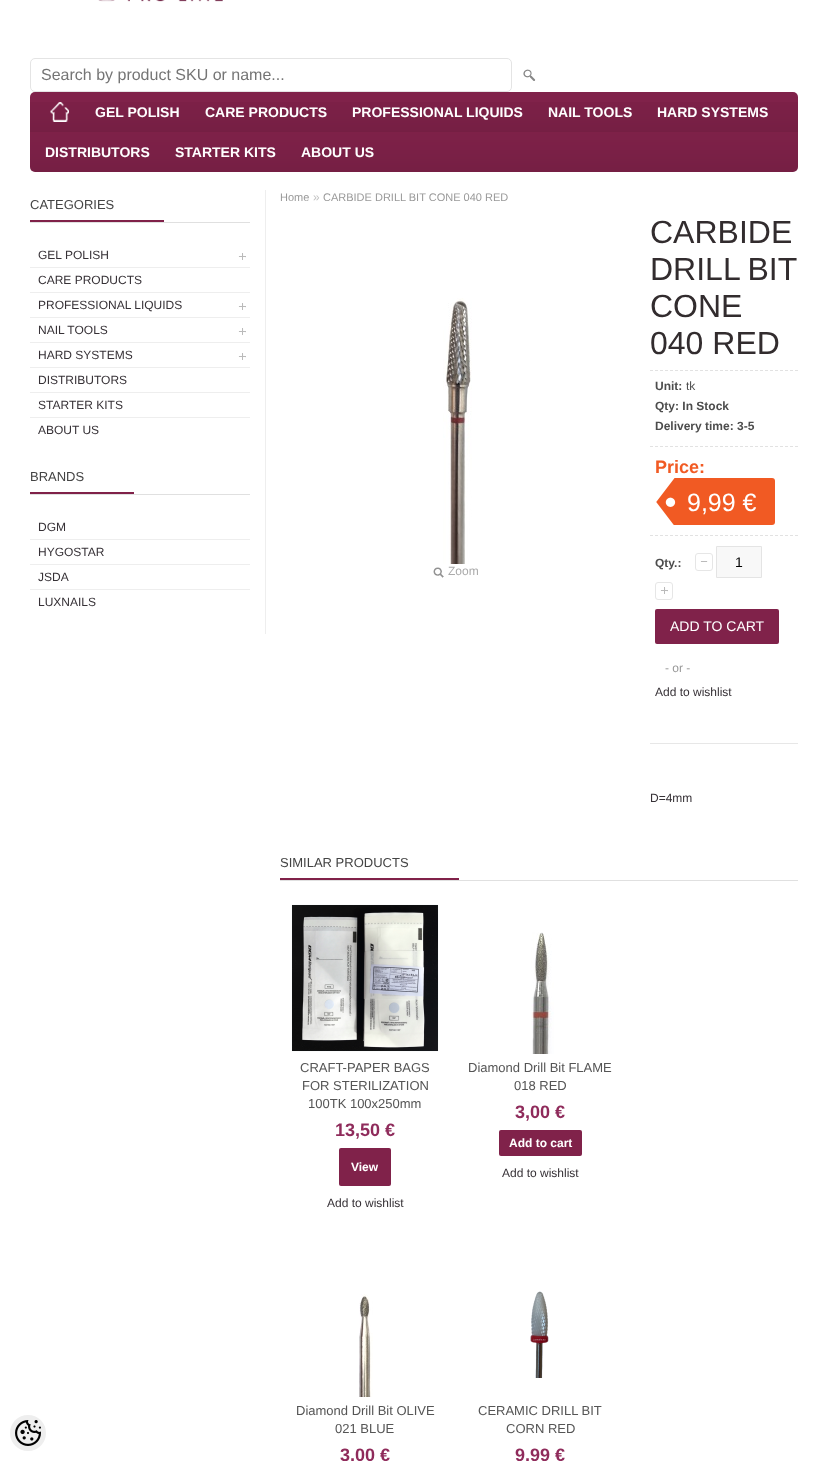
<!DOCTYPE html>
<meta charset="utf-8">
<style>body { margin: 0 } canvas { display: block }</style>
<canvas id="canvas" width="828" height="1461"></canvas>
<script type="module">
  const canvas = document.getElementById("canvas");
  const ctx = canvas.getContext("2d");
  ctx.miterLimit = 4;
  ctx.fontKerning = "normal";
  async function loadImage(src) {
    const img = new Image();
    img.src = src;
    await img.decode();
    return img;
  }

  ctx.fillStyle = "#ffffff";
  ctx.fillRect(0, 0, 828, 1461);
  ctx.fillStyle = "#eeeeee";
  ctx.beginPath();
  ctx.arc(28, 1433, 18, 0, Math.PI * 2);
  ctx.fill();
  ctx.drawImage(await loadImage("img1.png"), 15, 1420, 26, 26);
  ctx.drawImage(await loadImage("img2.png"), 98, 0, 125, 2);
  ctx.beginPath();
  ctx.roundRect(30.5, 58.5, 481, 33, 4.5);
  ctx.strokeStyle = "#e4e4e4";
  ctx.stroke();
  ctx.font = "16px Liberation Sans";
  ctx.fillStyle = "#757575";
  ctx.fillText("Search by product SKU or name...", 41, 80);
  ctx.drawImage(await loadImage("img3.png"), 523, 69, 13, 12);
  ctx.fillStyle = "#80224a";
  ctx.beginPath();
  ctx.roundRect(30, 92, 768, 80, 5);
  ctx.fill();
  ctx.drawImage(await loadImage("img4.png"), 30, 102, 768, 70);
  ctx.drawImage(await loadImage("img5.png"), 50, 102, 19, 20);
  ctx.font = "bold 14px Liberation Sans";
  ctx.fillStyle = "#ffffff";
  ctx.fillText("GEL POLISH", 95, 117);
  ctx.fillText("CARE PRODUCTS", 205, 117);
  ctx.fillText("PROFESSIONAL LIQUIDS", 352, 117);
  ctx.fillText("NAIL TOOLS", 548, 117);
  ctx.fillText("HARD SYSTEMS", 657, 117);
  ctx.fillText("DISTRIBUTORS", 45, 157);
  ctx.fillText("STARTER KITS", 175, 157);
  ctx.fillText("ABOUT US", 301, 157);
  ctx.fillStyle = "#eeeeee";
  ctx.fillRect(265, 190, 1, 444);
  ctx.fillStyle = "#e0e0e0";
  ctx.fillRect(30, 222, 220, 1);
  ctx.fillStyle = "#802149";
  ctx.fillRect(30, 220, 134, 2);
  ctx.font = "13px Liberation Sans";
  ctx.fillStyle = "#444444";
  ctx.fillText("CATEGORIES", 30, 209);
  ctx.font = "12px Liberation Sans";
  ctx.fillStyle = "#363136";
  ctx.fillText("GEL POLISH", 38, 259);
  ctx.drawImage(await loadImage("img6.png"), 238, 253, 8, 7);
  ctx.fillStyle = "#eeeeee";
  ctx.fillRect(30, 267, 220, 1);
  ctx.fillStyle = "#363136";
  ctx.fillText("CARE PRODUCTS", 38, 284);
  ctx.fillStyle = "#eeeeee";
  ctx.fillRect(30, 292, 220, 1);
  ctx.fillStyle = "#363136";
  ctx.fillText("PROFESSIONAL LIQUIDS", 38, 309);
  ctx.drawImage(await loadImage("img6.png"), 238, 303, 8, 7);
  ctx.fillStyle = "#eeeeee";
  ctx.fillRect(30, 317, 220, 1);
  ctx.fillStyle = "#363136";
  ctx.fillText("NAIL TOOLS", 38, 334);
  ctx.drawImage(await loadImage("img6.png"), 238, 328, 8, 7);
  ctx.fillStyle = "#eeeeee";
  ctx.fillRect(30, 342, 220, 1);
  ctx.fillStyle = "#363136";
  ctx.fillText("HARD SYSTEMS", 38, 359);
  ctx.drawImage(await loadImage("img6.png"), 238, 353, 8, 7);
  ctx.fillStyle = "#eeeeee";
  ctx.fillRect(30, 367, 220, 1);
  ctx.fillStyle = "#363136";
  ctx.fillText("DISTRIBUTORS", 38, 384);
  ctx.fillStyle = "#eeeeee";
  ctx.fillRect(30, 392, 220, 1);
  ctx.fillStyle = "#363136";
  ctx.fillText("STARTER KITS", 38, 409);
  ctx.fillStyle = "#eeeeee";
  ctx.fillRect(30, 417, 220, 1);
  ctx.fillStyle = "#363136";
  ctx.fillText("ABOUT US", 38, 434);
  ctx.fillStyle = "#e0e0e0";
  ctx.fillRect(30, 494, 220, 1);
  ctx.fillStyle = "#802149";
  ctx.fillRect(30, 492, 104, 2);
  ctx.font = "13px Liberation Sans";
  ctx.fillStyle = "#444444";
  ctx.fillText("BRANDS", 30, 481);
  ctx.font = "12px Liberation Sans";
  ctx.fillStyle = "#363136";
  ctx.fillText("DGM", 38, 531);
  ctx.fillStyle = "#eeeeee";
  ctx.fillRect(30, 539, 220, 1);
  ctx.fillStyle = "#363136";
  ctx.fillText("HYGOSTAR", 38, 556);
  ctx.fillStyle = "#eeeeee";
  ctx.fillRect(30, 564, 220, 1);
  ctx.fillStyle = "#363136";
  ctx.fillText("JSDA", 38, 581);
  ctx.fillStyle = "#eeeeee";
  ctx.fillRect(30, 589, 220, 1);
  ctx.fillStyle = "#363136";
  ctx.fillText("LUXNAILS", 38, 606);
  ctx.font = "11px Liberation Sans";
  ctx.fillStyle = "#999999";
  ctx.fillText("Home", 280, 201);
  ctx.font = "12px Liberation Sans";
  ctx.fillStyle = "#c2c2c2";
  ctx.fillText("»", 313, 201);
  ctx.font = "11px Liberation Sans";
  ctx.fillStyle = "#999999";
  ctx.fillText("CARBIDE DRILL BIT CONE 040 RED", 323, 201);
  ctx.drawImage(await loadImage("img7.png"), 443, 298, 29, 266);
  ctx.drawImage(await loadImage("img8.png"), 433, 567, 11, 11);
  ctx.font = "12px Liberation Sans";
  ctx.fillStyle = "#ababab";
  ctx.fillText("Zoom", 448, 575);
  ctx.font = "32px Liberation Sans";
  ctx.fillStyle = "#322c2e";
  ctx.fillText("CARBIDE", 650, 243);
  ctx.wordSpacing = "-1px";
  ctx.fillText("DRILL BIT", 650, 280);
  ctx.wordSpacing = "0px";
  ctx.fillText("CONE", 650, 317);
  ctx.fillText("040 RED", 650, 354);
  ctx.beginPath();
  ctx.moveTo(650, 370.5);
  ctx.lineTo(798, 370.5);
  ctx.strokeStyle = "#e2e2e2";
  ctx.setLineDash([3, 2]);
  ctx.stroke();
  ctx.beginPath();
  ctx.moveTo(650, 446.5);
  ctx.lineTo(798, 446.5);
  ctx.stroke();
  ctx.font = "bold 12px Liberation Sans";
  ctx.fillStyle = "#4d4d4d";
  ctx.fillText("Unit:", 655, 390);
  ctx.font = "12px Liberation Sans";
  ctx.fillText("tk", 686, 390);
  ctx.font = "bold 12px Liberation Sans";
  ctx.fillText("Qty: In Stock", 655, 410);
  ctx.fillText("Delivery time: 3-5", 655, 430);
  ctx.beginPath();
  ctx.moveTo(650, 535.5);
  ctx.lineTo(798, 535.5);
  ctx.stroke();
  ctx.font = "bold 18px Liberation Sans";
  ctx.fillStyle = "#f15a23";
  ctx.fillText("Price:", 655, 473);
  ctx.beginPath();
  ctx.roundRect(655, 478, 120, 47, [0, 3, 3, 0]);
  ctx.fill();
  ctx.drawImage(await loadImage("img9.png"), 655, 478, 21, 47);
  ctx.font = "25px Liberation Sans";
  ctx.fillStyle = "#ffffff";
  ctx.fillText("9,99 €", 687, 511);
  ctx.fillStyle = "#e7e7e7";
  ctx.fillRect(650, 743, 148, 1);
  ctx.font = "bold 12px Liberation Sans";
  ctx.fillStyle = "#4d4d4d";
  ctx.fillText("Qty.:", 655, 567);
  ctx.drawImage(await loadImage("img10.png"), 700, 561, 8, 1);
  ctx.beginPath();
  ctx.roundRect(695.5, 553.5, 17, 17, 2.5);
  ctx.strokeStyle = "#e6e6e6";
  ctx.setLineDash([]);
  ctx.stroke();
  ctx.fillStyle = "#f8f8f8";
  ctx.beginPath();
  ctx.rect(716.5, 546.5, 45, 31);
  ctx.fill();
  ctx.strokeStyle = "#e4e4e4";
  ctx.stroke();
  ctx.font = "14px Liberation Sans";
  ctx.fillStyle = "#000000";
  ctx.fillText("1", 735, 567);
  ctx.drawImage(await loadImage("img6.png"), 660, 587, 8, 7);
  ctx.beginPath();
  ctx.roundRect(655.5, 582.5, 17, 17, 2.5);
  ctx.strokeStyle = "#e6e6e6";
  ctx.stroke();
  ctx.fillStyle = "#80224a";
  ctx.beginPath();
  ctx.roundRect(655, 609, 124, 35, 2);
  ctx.fill();
  ctx.fillStyle = "#ffffff";
  ctx.fillText("ADD TO CART", 670, 631);
  ctx.font = "12px Liberation Sans";
  ctx.fillStyle = "#999999";
  ctx.fillText("- or -", 665, 672);
  ctx.fillStyle = "#363136";
  ctx.fillText("Add to wishlist", 655, 696);
  ctx.fillText("D=4mm", 650, 802);
  ctx.fillStyle = "#e0e0e0";
  ctx.fillRect(280, 880, 518, 1);
  ctx.fillStyle = "#802149";
  ctx.fillRect(280, 878, 179, 2);
  ctx.font = "13px Liberation Sans";
  ctx.fillStyle = "#444444";
  ctx.fillText("SIMILAR PRODUCTS", 280, 867);
  ctx.drawImage(await loadImage("img11.png"), 291, 904, 148, 148);
  ctx.fillStyle = "#555555";
  ctx.fillText("CRAFT-PAPER BAGS", 300, 1072);
  ctx.fillText("FOR STERILIZATION", 302, 1090);
  ctx.fillText("100TK 100x250mm", 308, 1108);
  ctx.font = "bold 18px Liberation Sans";
  ctx.fillStyle = "#8f2b5b";
  ctx.fillText("13,50 €", 335, 1136);
  ctx.fillStyle = "#80224a";
  ctx.beginPath();
  ctx.roundRect(339, 1148, 52, 38, 2);
  ctx.fill();
  ctx.font = "bold 12px Liberation Sans";
  ctx.fillStyle = "#ffffff";
  ctx.fillText("View", 351, 1171);
  ctx.font = "12px Liberation Sans";
  ctx.fillStyle = "#363136";
  ctx.fillText("Add to wishlist", 327, 1207);
  ctx.drawImage(await loadImage("img12.png"), 531, 932, 23, 122);
  ctx.font = "13px Liberation Sans";
  ctx.fillStyle = "#555555";
  ctx.fillText("Diamond Drill Bit FLAME", 468, 1072);
  ctx.fillText("018 RED", 514, 1090);
  ctx.font = "bold 18px Liberation Sans";
  ctx.fillStyle = "#8f2b5b";
  ctx.fillText("3,00 €", 515, 1118);
  ctx.fillStyle = "#80224a";
  ctx.beginPath();
  ctx.roundRect(499, 1130, 83, 26, 2);
  ctx.fill();
  ctx.font = "bold 12px Liberation Sans";
  ctx.fillStyle = "#ffffff";
  ctx.fillText("Add to cart", 509, 1147);
  ctx.font = "12px Liberation Sans";
  ctx.fillStyle = "#363136";
  ctx.fillText("Add to wishlist", 502, 1177);
  ctx.drawImage(await loadImage("img13.png"), 359, 1294, 14, 103);
  ctx.font = "13px Liberation Sans";
  ctx.fillStyle = "#555555";
  ctx.fillText("Diamond Drill Bit OLIVE", 296, 1415);
  ctx.fillText("021 BLUE", 335, 1433);
  ctx.font = "bold 18px Liberation Sans";
  ctx.fillStyle = "#8f2b5b";
  ctx.fillText("3,00 €", 340, 1461);
  ctx.drawImage(await loadImage("img14.png"), 530, 1291, 19, 87);
  ctx.font = "13px Liberation Sans";
  ctx.fillStyle = "#555555";
  ctx.fillText("CERAMIC DRILL BIT", 478, 1415);
  ctx.fillText("CORN RED", 506, 1433);
  ctx.font = "bold 18px Liberation Sans";
  ctx.fillStyle = "#8f2b5b";
  ctx.fillText("9,99 €", 515, 1461);
</script>
